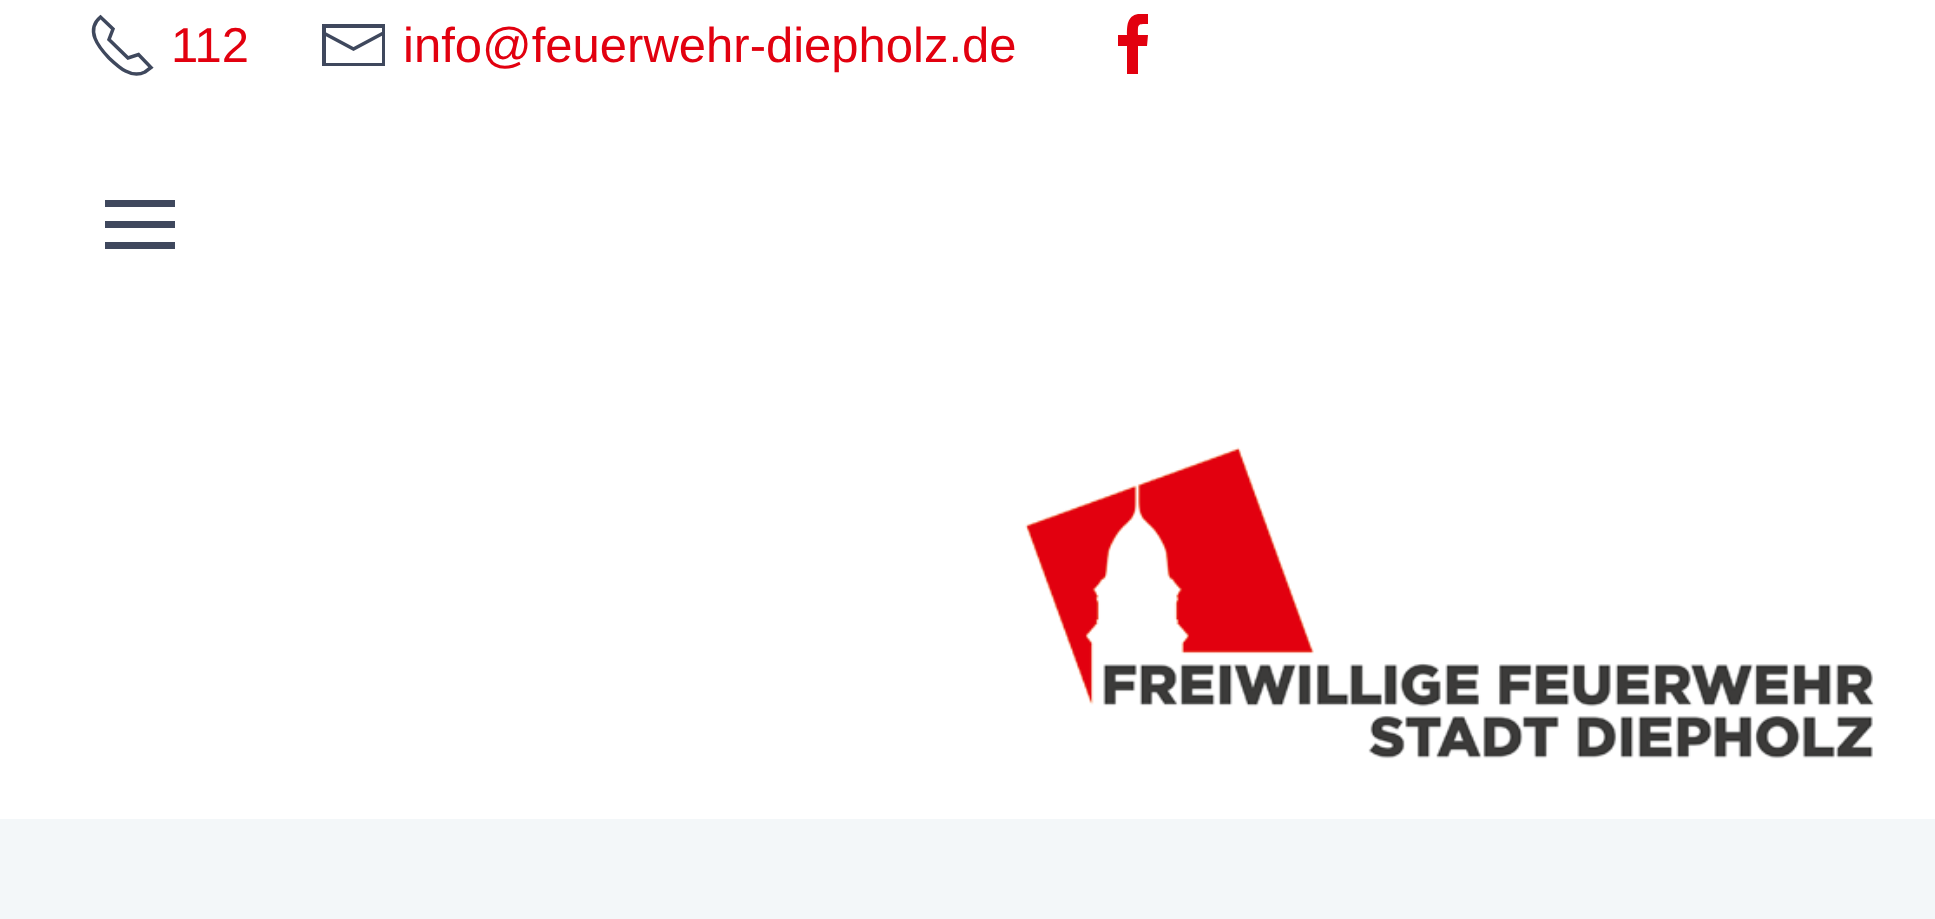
<!DOCTYPE html>
<meta charset="utf-8">
<style>body { margin: 0 } canvas { display: block }</style>
<canvas id="canvas" width="1935" height="919"></canvas>
<script type="module">
  const canvas = document.getElementById("canvas");
  const ctx = canvas.getContext("2d");
  ctx.miterLimit = 4;
  ctx.fontKerning = "normal";
  async function loadImage(src) {
    const img = new Image();
    img.src = src;
    await img.decode();
    return img;
  }

  ctx.fillStyle = "#ffffff";
  ctx.fillRect(0, 0, 1935, 919);
  ctx.beginPath();
  ctx.moveTo(109, 58);
  ctx.bezierCurveTo(118.5, 67, 131, 79, 145, 72);
  ctx.lineTo(151, 67.5);
  ctx.lineTo(138.5, 54.5);
  ctx.lineTo(128, 58);
  ctx.lineTo(109, 39.5);
  ctx.lineTo(113, 29);
  ctx.lineTo(100.5, 17);
  ctx.bezierCurveTo(85, 30, 98.5, 47, 109, 58);
  ctx.strokeStyle = "#3f485d";
  ctx.lineWidth = 3.5;
  ctx.stroke();
  ctx.font = "49px Liberation Sans";
  ctx.fillStyle = "#e2000f";
  ctx.fillText("112", 171, 62);
  ctx.beginPath();
  ctx.moveTo(323.5, 33);
  ctx.lineTo(353.5, 49);
  ctx.lineTo(383.5, 33);
  ctx.stroke();
  ctx.fillStyle = "#3f485d";
  ctx.beginPath();
  ctx.moveTo(322, 24);
  ctx.lineTo(322, 66);
  ctx.lineTo(385, 66);
  ctx.lineTo(385, 24);
  ctx.closePath();
  ctx.moveTo(382, 63);
  ctx.lineTo(326, 63);
  ctx.lineTo(326, 28);
  ctx.lineTo(382, 28);
  ctx.closePath();
  ctx.fill();
  ctx.fillStyle = "#e2000f";
  ctx.fillText("info@feuerwehr-diepholz.de", 403, 62);
  ctx.beginPath();
  ctx.moveTo(1138, 46);
  ctx.lineTo(1147, 46);
  ctx.lineTo(1148, 35);
  ctx.lineTo(1138, 35);
  ctx.bezierCurveTo(1138, 24, 1137, 24, 1148, 24);
  ctx.lineTo(1148, 14);
  ctx.lineTo(1138, 14);
  ctx.bezierCurveTo(1127, 16, 1127, 26, 1127, 35);
  ctx.lineTo(1118, 35);
  ctx.lineTo(1118, 46);
  ctx.lineTo(1127, 46);
  ctx.lineTo(1127, 74);
  ctx.lineTo(1138, 74);
  ctx.closePath();
  ctx.fill();
  ctx.fillStyle = "#3f485d";
  ctx.fillRect(105, 200, 70, 7);
  ctx.fillRect(105, 221, 70, 7);
  ctx.fillRect(105, 242, 70, 7);
  ctx.drawImage(await loadImage("img1.png"), 1025, 447, 850, 312);
  ctx.fillStyle = "#f3f7f9";
  ctx.fillRect(0, 819, 1935, 100);
</script>
